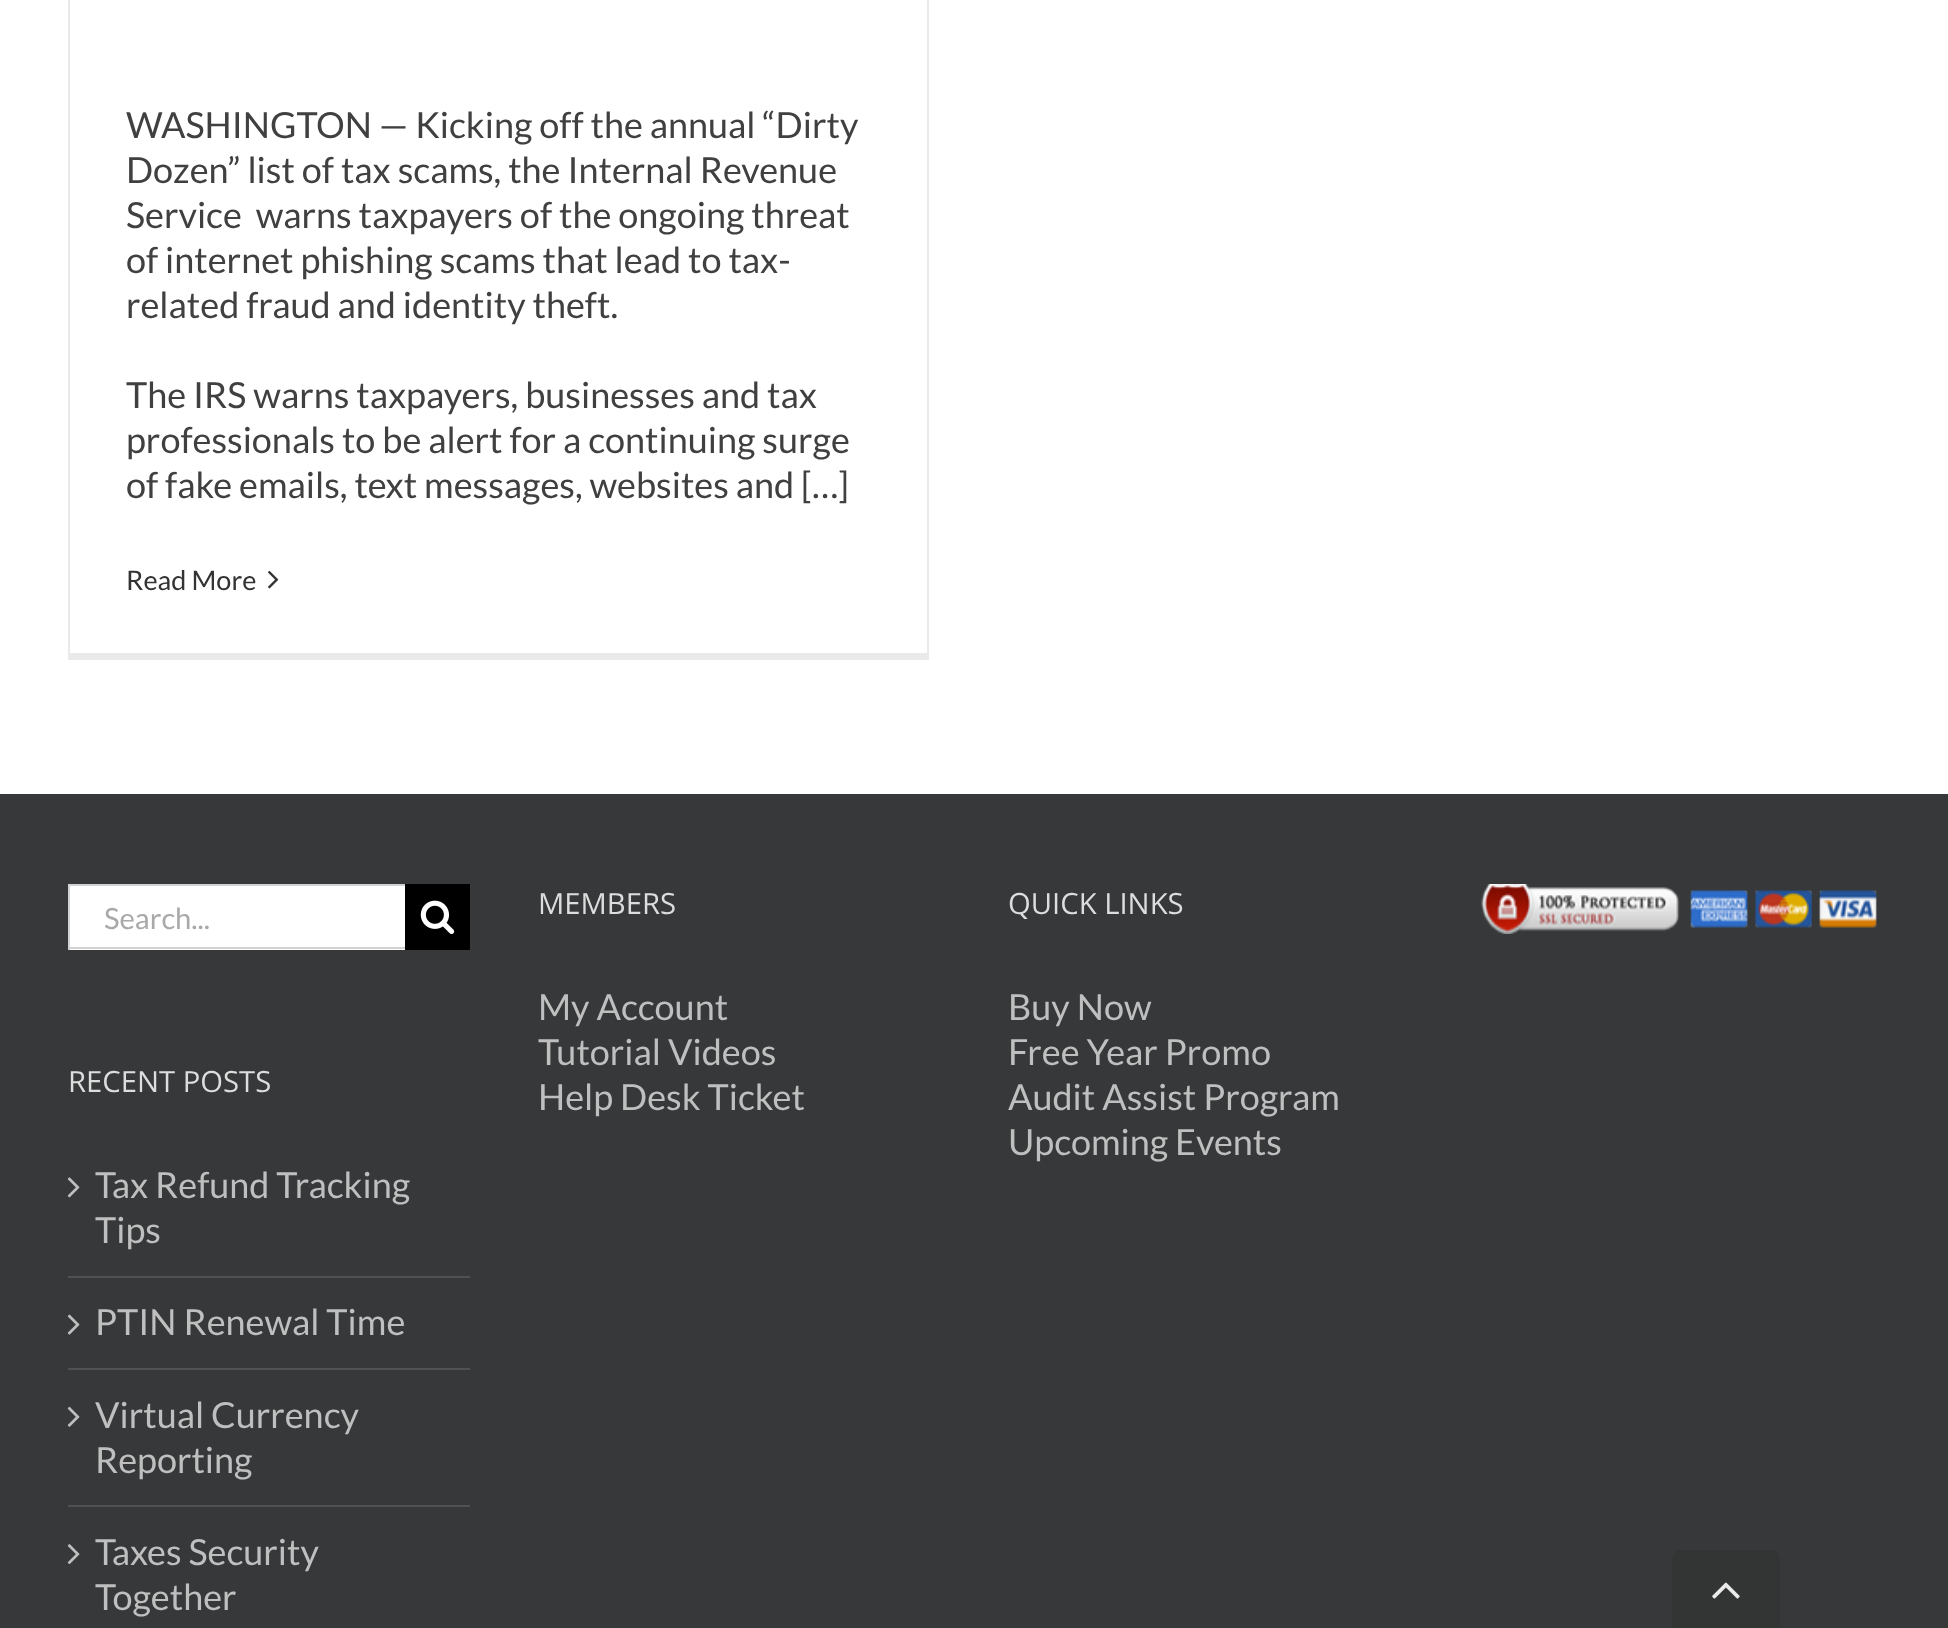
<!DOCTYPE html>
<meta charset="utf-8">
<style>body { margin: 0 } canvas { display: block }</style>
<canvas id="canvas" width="1948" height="1628"></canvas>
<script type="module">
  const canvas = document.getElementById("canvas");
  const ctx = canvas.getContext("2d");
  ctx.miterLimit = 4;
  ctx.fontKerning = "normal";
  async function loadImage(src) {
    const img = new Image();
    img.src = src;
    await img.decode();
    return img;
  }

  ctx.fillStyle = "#ffffff";
  ctx.fillRect(0, 0, 1948, 1628);
  ctx.fillStyle = "#ebeaea";
  ctx.fillRect(927, 0, 2, 659);
  ctx.fillRect(68, 653, 861, 7);
  ctx.fillRect(68, 0, 2, 659);
  ctx.font = "36px Lato";
  ctx.fillStyle = "#404040";
  ctx.fillText("WASHINGTON — Kicking off the annual “Dirty", 126, 138);
  ctx.fillText("Dozen” list of tax scams, the Internal Revenue", 126, 183);
  ctx.fillText("Service  warns taxpayers of the ongoing threat", 126, 228);
  ctx.fillText("of internet phishing scams that lead to tax-", 126, 273);
  ctx.fillText("related fraud and identity theft.", 126, 318);
  ctx.fillText("The IRS warns taxpayers, businesses and tax", 126, 408);
  ctx.fillText("professionals to be alert for a continuing surge", 126, 453);
  ctx.fillText("of fake emails, text messages, websites and […]", 126, 498);
  ctx.font = "27px Lato";
  ctx.fillStyle = "#333333";
  ctx.fillText("Read More", 126, 590);
  ctx.drawImage(await loadImage("img1.png"), 268, 570, 11, 19);
  ctx.fillStyle = "#363839";
  ctx.fillRect(0, 794, 1948, 834);
  ctx.fillStyle = "#ffffff";
  ctx.fillRect(70, 886, 335, 64);
  ctx.fillStyle = "#d2d2d2";
  ctx.fillRect(68, 884, 337, 2);
  ctx.fillRect(68, 947, 337, 2);
  ctx.fillRect(68, 884, 2, 66);
  ctx.font = "29.25px Lato";
  ctx.fillStyle = "#aaa9a9";
  ctx.fillText("Search...", 104, 929);
  ctx.fillStyle = "#000000";
  ctx.fillRect(405, 884, 65, 66);
  ctx.drawImage(await loadImage("img2.png"), 420, 900, 35, 35);
  ctx.font = "29.25px Open Sans";
  ctx.fillStyle = "#dddddd";
  ctx.fillText("RECENT POSTS", 68, 1092);
  ctx.fillStyle = "#505152";
  ctx.fillRect(68, 1276, 402, 2);
  ctx.drawImage(await loadImage("img3.png"), 67, 1177, 13, 21);
  ctx.font = "36px Lato";
  ctx.fillStyle = "#bfbfbf";
  ctx.fillText("Tax Refund Tracking", 95, 1198);
  ctx.fillText("Tips", 95, 1243);
  ctx.fillStyle = "#505152";
  ctx.fillRect(68, 1368, 402, 2);
  ctx.drawImage(await loadImage("img4.png"), 67, 1314, 13, 21);
  ctx.fillStyle = "#bfbfbf";
  ctx.fillText("PTIN Renewal Time", 95, 1335);
  ctx.fillStyle = "#505152";
  ctx.fillRect(68, 1505, 402, 2);
  ctx.drawImage(await loadImage("img5.png"), 67, 1406, 13, 21);
  ctx.fillStyle = "#bfbfbf";
  ctx.fillText("Virtual Currency", 95, 1428);
  ctx.fillText("Reporting", 95, 1473);
  ctx.drawImage(await loadImage("img6.png"), 67, 1544, 13, 21);
  ctx.fillText("Taxes Security", 95, 1565);
  ctx.fillText("Together", 95, 1610);
  ctx.font = "29.25px Open Sans";
  ctx.fillStyle = "#dddddd";
  ctx.fillText("MEMBERS", 538, 914);
  ctx.font = "36px Lato";
  ctx.fillStyle = "#bfbfbf";
  ctx.fillText("My Account", 538, 1020);
  ctx.fillText("Tutorial Videos", 538, 1065);
  ctx.fillText("Help Desk Ticket", 538, 1110);
  ctx.font = "29.25px Open Sans";
  ctx.fillStyle = "#dddddd";
  ctx.fillText("QUICK LINKS", 1008, 914);
  ctx.font = "36px Lato";
  ctx.fillStyle = "#bfbfbf";
  ctx.fillText("Buy Now", 1008, 1020);
  ctx.fillText("Free Year Promo", 1008, 1065);
  ctx.fillText("Audit Assist Program", 1008, 1110);
  ctx.fillText("Upcoming Events", 1008, 1155);
  ctx.drawImage(await loadImage("img7.png"), 1481, 884, 396, 50);
  ctx.fillStyle = "#333434";
  ctx.beginPath();
  ctx.moveTo(1681, 1550);
  ctx.lineTo(1771, 1550);
  ctx.bezierCurveTo(1776, 1550, 1780, 1554, 1780, 1559);
  ctx.lineTo(1780, 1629);
  ctx.lineTo(1672, 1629);
  ctx.lineTo(1672, 1559);
  ctx.bezierCurveTo(1672, 1554, 1676, 1550, 1681, 1550);
  ctx.closePath();
  ctx.fill();
  ctx.drawImage(await loadImage("img8.png"), 1712, 1582, 28, 17);
</script>
